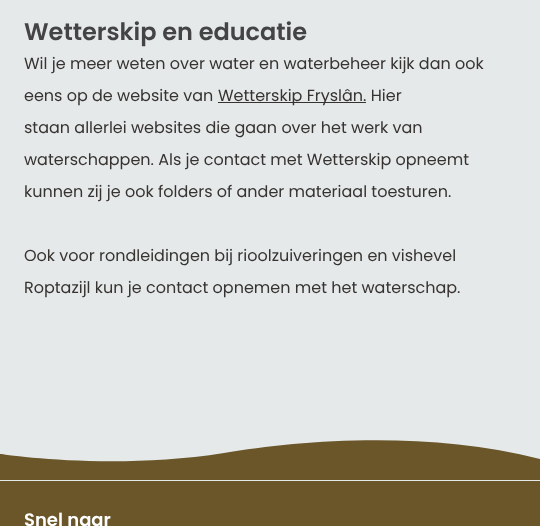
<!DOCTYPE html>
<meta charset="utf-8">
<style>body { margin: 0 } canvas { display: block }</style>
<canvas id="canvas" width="540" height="526"></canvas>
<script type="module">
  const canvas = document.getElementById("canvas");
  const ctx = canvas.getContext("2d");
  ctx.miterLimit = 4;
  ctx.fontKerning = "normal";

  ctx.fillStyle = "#e5e9ea";
  ctx.fillRect(0, 0, 540, 526);
  ctx.font = "600 24px Poppins";
  ctx.fillStyle = "#444444";
  ctx.fillText("Wetterskip en educatie", 24, 40);
  ctx.font = "16px Poppins";
  ctx.fillStyle = "#373331";
  ctx.fillText("Wil je meer weten over water en waterbeheer kijk dan ook", 24, 69);
  ctx.fillText("eens op de website van", 24, 101);
  ctx.fillRect(218, 102, 148, 1);
  ctx.fillText("Wetterskip Fryslân. Hier", 218, 101);
  ctx.fillText("staan allerlei websites die gaan over het werk van", 24, 133);
  ctx.fillText("waterschappen. Als je contact met Wetterskip opneemt", 24, 165);
  ctx.fillText("kunnen zij je ook folders of ander materiaal toesturen.", 24, 197);
  ctx.fillText("Ook voor rondleidingen bij rioolzuiveringen en vishevel", 24, 261);
  ctx.fillText("Roptazijl kun je contact opnemen met het waterschap.", 24, 293);
  ctx.fillStyle = "#6a5629";
  ctx.beginPath();
  ctx.moveTo(540, 459);
  ctx.bezierCurveTo(428, 430, 300, 440, 224, 453);
  ctx.bezierCurveTo(111, 471, 1, 454, 1, 454);
  ctx.lineTo(0, 454);
  ctx.lineTo(0, 480);
  ctx.lineTo(540, 480);
  ctx.closePath();
  ctx.fill();
  ctx.fillRect(0, 481, 540, 45);
  ctx.font = "600 18px Poppins";
  ctx.fillStyle = "#ffffff";
  ctx.fillText("Snel naar", 24, 526);
</script>
